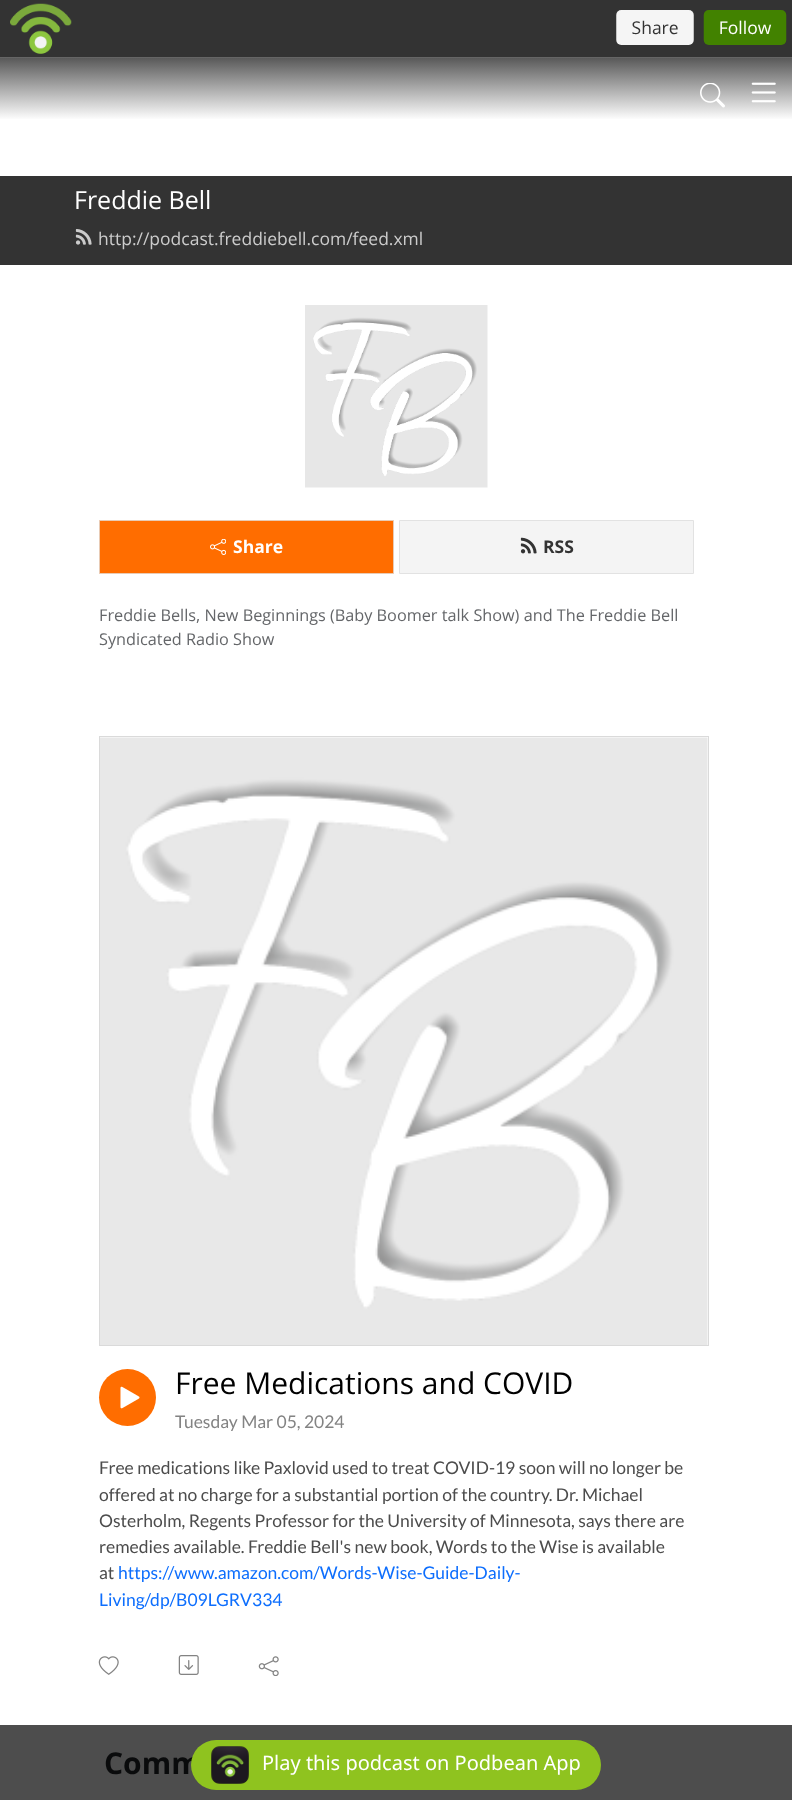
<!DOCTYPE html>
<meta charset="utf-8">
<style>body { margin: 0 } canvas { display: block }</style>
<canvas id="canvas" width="792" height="1800"></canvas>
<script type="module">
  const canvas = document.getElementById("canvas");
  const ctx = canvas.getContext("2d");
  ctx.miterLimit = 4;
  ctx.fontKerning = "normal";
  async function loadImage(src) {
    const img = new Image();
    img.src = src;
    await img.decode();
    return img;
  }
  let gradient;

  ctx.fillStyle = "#ffffff";
  ctx.fillRect(0, 0, 792, 1800);
  ctx.fillStyle = "#4d4d4d";
  ctx.fillRect(0, 1725, 792, 75);
  ctx.fillStyle = "#333333";
  ctx.fillRect(0, 0, 792, 3);
  ctx.drawImage(await loadImage("img1.png"), 0, 3, 792, 55);
  gradient = ctx.createLinearGradient(396, 120, 396, 58);
  gradient.addColorStop(0, "#ffffff");
  gradient.addColorStop(1, "#595959");
  ctx.fillStyle = gradient;
  ctx.fillRect(0, 58, 792, 61);
  ctx.drawImage(await loadImage("img2.png"), 700, 83, 25, 25);
  ctx.drawImage(await loadImage("img3.png"), 751, 82, 25, 21);
  ctx.fillStyle = "#333333";
  ctx.fillRect(0, 176, 792, 89);
  ctx.font = "25px Open Sans";
  ctx.fillStyle = "#ffffff";
  ctx.fillText("Freddie Bell", 74, 209);
  ctx.drawImage(await loadImage("img4.png"), 75, 229, 17, 16);
  ctx.font = "17.5px Open Sans";
  ctx.fillStyle = "#cccccc";
  ctx.fillText("http://podcast.freddiebell.com/feed.xml", 98, 245);
  ctx.drawImage(await loadImage("img5.png"), 305, 305, 183, 183);
  ctx.fillStyle = "#ff6d00";
  ctx.beginPath();
  ctx.rect(99.5, 520.5, 294, 53);
  ctx.fill();
  ctx.strokeStyle = "#e8cbb5";
  ctx.stroke();
  ctx.drawImage(await loadImage("img6.png"), 210, 539, 16, 16);
  ctx.font = "bold 17.5px Open Sans";
  ctx.fillStyle = "#ffffff";
  ctx.fillText("Share", 233, 553);
  ctx.fillStyle = "#f4f4f4";
  ctx.beginPath();
  ctx.rect(399.5, 520.5, 294, 53);
  ctx.fill();
  ctx.strokeStyle = "#e2e2e2";
  ctx.stroke();
  ctx.drawImage(await loadImage("img7.png"), 520, 537, 17, 17);
  ctx.fillStyle = "#333333";
  ctx.fillText("RSS", 543, 553);
  ctx.font = "16.25px Open Sans";
  ctx.fillStyle = "#646669";
  ctx.fillText("Freddie Bells, New Beginnings (Baby Boomer talk Show) and The Freddie Bell", 99, 621);
  ctx.fillText("Syndicated Radio Show", 99, 645);
  ctx.strokeStyle = "#dadada";
  ctx.strokeRect(99.5, 736.5, 609, 609);
  ctx.drawImage(await loadImage("img8.png"), 100, 737, 608, 608);
  ctx.fillStyle = "#ff6d00";
  ctx.beginPath();
  ctx.arc(127.5, 1397.5, 28.5, 0, Math.PI * 2);
  ctx.fill();
  ctx.drawImage(await loadImage("img9.png"), 120, 1386, 20, 23);
  ctx.font = "30px Open Sans";
  ctx.fillStyle = "#000000";
  ctx.fillText("Free Medications and COVID", 175, 1394);
  ctx.font = "17.5px Lato";
  ctx.fillStyle = "#838383";
  ctx.fillText("Tuesday Mar 05, 2024", 175, 1428);
  ctx.fillStyle = "#4c4c4c";
  ctx.fillText("Free medications like Paxlovid used to treat COVID-19 soon will no longer be", 99, 1474);
  ctx.fillText("offered at no charge for a substantial portion of the country. Dr. Michael", 99, 1501);
  ctx.fillText("Osterholm, Regents Professor for the University of Minnesota, says there are", 99, 1527);
  ctx.fillText("remedies available. Freddie Bell's new book, Words to the Wise is available", 99, 1553);
  ctx.fillText("at", 99, 1579);
  ctx.fillStyle = "#0d6efd";
  ctx.fillText("https://www.amazon.com/Words-Wise-Guide-Daily-", 118, 1579);
  ctx.fillText("Living/dp/B09LGRV334", 99, 1606);
  ctx.drawImage(await loadImage("img10.png"), 98, 1656, 21, 19);
  ctx.drawImage(await loadImage("img11.png"), 178, 1655, 21, 20);
  ctx.drawImage(await loadImage("img12.png"), 258, 1656, 21, 20);
  ctx.font = "bold 30px Open Sans";
  ctx.fillStyle = "#0a0b0c";
  ctx.fillText("Comm", 104, 1774);
  ctx.fillStyle = "#8fc31f";
  ctx.beginPath();
  ctx.roundRect(191, 1740, 410, 50, 25);
  ctx.fill();
  ctx.drawImage(await loadImage("img13.png"), 211, 1746, 38, 38);
  ctx.font = "20px Noto Sans";
  ctx.fillStyle = "#ffffff";
  ctx.fillText("Play this podcast on Podbean App", 262, 1770);
</script>
